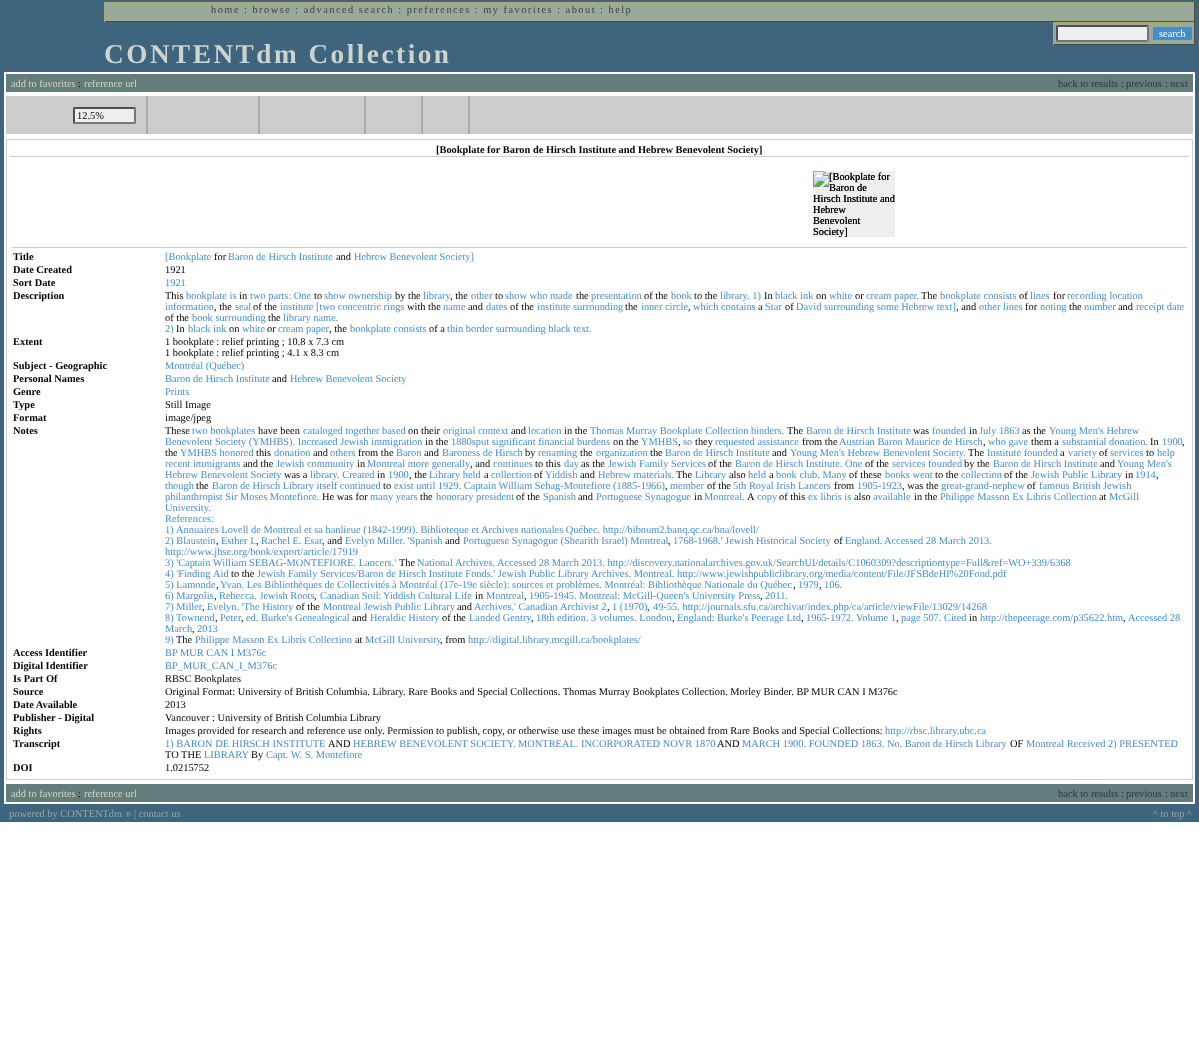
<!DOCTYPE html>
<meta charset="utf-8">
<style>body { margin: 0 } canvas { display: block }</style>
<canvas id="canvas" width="1199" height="1037"></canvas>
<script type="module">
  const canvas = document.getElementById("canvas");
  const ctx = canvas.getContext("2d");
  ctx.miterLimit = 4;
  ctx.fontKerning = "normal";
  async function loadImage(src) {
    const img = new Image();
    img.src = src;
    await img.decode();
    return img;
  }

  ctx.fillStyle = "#ffffff";
  ctx.fillRect(0, 0, 1199, 1037);
  ctx.fillStyle = "#3e647e";
  ctx.fillRect(0, 0, 4, 822);
  ctx.fillRect(4, 0, 1191, 72);
  ctx.fillStyle = "#99a99a";
  ctx.fillRect(105, 3, 1089, 18);
  ctx.fillStyle = "#ada86b";
  ctx.fillRect(104, 2, 1091, 1);
  ctx.fillStyle = "#4c4c45";
  ctx.fillRect(104, 21, 1077, 1);
  ctx.fillStyle = "#ada86b";
  ctx.fillRect(104, 2, 1, 20);
  ctx.letterSpacing = "1.47px";
  ctx.font = "10.4px Liberation Serif";
  ctx.fillStyle = "#404040";
  ctx.fillText("home : browse : advanced search : preferences : my favorites : about : help", 211, 13);
  ctx.fillStyle = "#4c4c45";
  ctx.fillRect(1194, 2, 1, 20);
  ctx.fillRect(1181, 21, 14, 1);
  ctx.fillStyle = "#99a99a";
  ctx.fillRect(1054, 23, 140, 21);
  ctx.fillStyle = "#ada86b";
  ctx.fillRect(1053, 22, 142, 1);
  ctx.fillStyle = "#4c4c45";
  ctx.fillRect(1053, 44, 98, 1);
  ctx.fillStyle = "#ada86b";
  ctx.fillRect(1053, 22, 1, 23);
  ctx.fillStyle = "#eeeeee";
  ctx.fillRect(1056, 25, 93, 17);
  ctx.fillStyle = "#4f4f4f";
  ctx.beginPath();
  ctx.moveTo(1056, 25);
  ctx.lineTo(1149, 25);
  ctx.lineTo(1147, 27);
  ctx.lineTo(1058, 27);
  ctx.closePath();
  ctx.fill();
  ctx.fillStyle = "#767676";
  ctx.beginPath();
  ctx.moveTo(1149, 25);
  ctx.lineTo(1149, 42);
  ctx.lineTo(1147, 40);
  ctx.lineTo(1147, 27);
  ctx.closePath();
  ctx.fill();
  ctx.beginPath();
  ctx.moveTo(1149, 42);
  ctx.lineTo(1056, 42);
  ctx.lineTo(1058, 40);
  ctx.lineTo(1147, 40);
  ctx.closePath();
  ctx.fill();
  ctx.fillStyle = "#4f4f4f";
  ctx.beginPath();
  ctx.moveTo(1056, 42);
  ctx.lineTo(1056, 25);
  ctx.lineTo(1058, 27);
  ctx.lineTo(1058, 40);
  ctx.closePath();
  ctx.fill();
  ctx.fillStyle = "#4c4c45";
  ctx.fillRect(1194, 22, 1, 23);
  ctx.fillRect(1151, 44, 44, 1);
  ctx.fillStyle = "#448ccb";
  ctx.fillRect(1153, 27, 39, 13);
  ctx.letterSpacing = "0px";
  ctx.fillStyle = "#ffffff";
  ctx.fillText("search", 1159, 37);
  ctx.letterSpacing = "2.5px";
  ctx.font = "bold 27.25px Liberation Serif";
  ctx.fillStyle = "#cdd3cd";
  ctx.fillText("CONTENTdm Collection", 104, 63);
  ctx.fillStyle = "#627d7c";
  ctx.fillRect(6, 74, 1187, 18);
  ctx.letterSpacing = "0px";
  ctx.font = "10.4px Liberation Serif";
  ctx.fillStyle = "#d9d7b9";
  ctx.fillText("add to favorites", 11, 87);
  ctx.fillStyle = "#202020";
  ctx.fillText(":", 78, 87);
  ctx.fillStyle = "#d9d7b9";
  ctx.fillText("reference url", 84, 87);
  ctx.fillStyle = "#333333";
  ctx.fillText("back to results", 1058, 87);
  ctx.fillStyle = "#202020";
  ctx.fillText(":", 1121, 87);
  ctx.fillStyle = "#333333";
  ctx.fillText("previous", 1126, 87);
  ctx.fillStyle = "#202020";
  ctx.fillText(":", 1165, 87);
  ctx.fillStyle = "#333333";
  ctx.fillText("next", 1170, 87);
  ctx.fillStyle = "#3e647e";
  ctx.fillRect(1195, 0, 4, 822);
  ctx.fillStyle = "#cccccc";
  ctx.fillRect(6, 96, 1187, 38);
  ctx.fillStyle = "#aaaaaa";
  ctx.fillRect(146, 96, 2, 38);
  ctx.fillStyle = "#eeeeee";
  ctx.fillRect(73, 107, 63, 17);
  ctx.fillStyle = "#4f4f4f";
  ctx.beginPath();
  ctx.moveTo(73, 107);
  ctx.lineTo(136, 107);
  ctx.lineTo(134, 109);
  ctx.lineTo(75, 109);
  ctx.closePath();
  ctx.fill();
  ctx.fillStyle = "#767676";
  ctx.beginPath();
  ctx.moveTo(136, 107);
  ctx.lineTo(136, 124);
  ctx.lineTo(134, 122);
  ctx.lineTo(134, 109);
  ctx.closePath();
  ctx.fill();
  ctx.beginPath();
  ctx.moveTo(136, 124);
  ctx.lineTo(73, 124);
  ctx.lineTo(75, 122);
  ctx.lineTo(134, 122);
  ctx.closePath();
  ctx.fill();
  ctx.fillStyle = "#4f4f4f";
  ctx.beginPath();
  ctx.moveTo(73, 124);
  ctx.lineTo(73, 107);
  ctx.lineTo(75, 109);
  ctx.lineTo(75, 122);
  ctx.closePath();
  ctx.fill();
  ctx.fillStyle = "#000000";
  ctx.fillText("12.5%", 77, 119);
  ctx.fillStyle = "#aaaaaa";
  ctx.fillRect(258, 96, 2, 38);
  ctx.fillRect(364, 96, 2, 38);
  ctx.fillRect(421, 96, 2, 38);
  ctx.fillRect(468, 96, 2, 38);
  ctx.strokeStyle = "#cccccc";
  ctx.strokeRect(6.5, 139.5, 1186, 640);
  ctx.fillStyle = "#cccccc";
  ctx.fillRect(10, 156, 1179, 1);
  ctx.font = "bold 10.4px Liberation Serif";
  ctx.fillStyle = "#000000";
  ctx.fillText("[Bookplate for Baron de Hirsch Institute and Hebrew Benevolent Society]", 436, 153);
  ctx.fillStyle = "#eeeeee";
  ctx.fillRect(813, 171, 82, 66);
  ctx.drawImage(await loadImage("img1.png"), 813, 171, 82, 66);
  ctx.font = "10.4px Liberation Serif";
  ctx.fillStyle = "#000000";
  ctx.fillText("[Bookplate for", 829, 180);
  ctx.fillText("Baron de", 829, 191);
  ctx.fillText("Hirsch Institute and", 813, 202);
  ctx.fillText("Hebrew", 813, 213);
  ctx.fillText("Benevolent", 813, 224);
  ctx.fillText("Society]", 813, 235);
  ctx.fillStyle = "#cccccc";
  ctx.fillRect(12, 247, 1175, 1);
  ctx.font = "bold 10.4px Liberation Serif";
  ctx.fillStyle = "#000000";
  ctx.fillText("Title", 13, 260);
  ctx.font = "10.4px Liberation Serif";
  ctx.fillStyle = "#448ccb";
  ctx.fillText("[Bookplate", 165, 260);
  ctx.fillStyle = "#000000";
  ctx.fillText("for", 214, 260);
  ctx.fillStyle = "#448ccb";
  ctx.fillText("Baron de Hirsch Institute", 228, 260);
  ctx.fillStyle = "#000000";
  ctx.fillText("and", 336, 260);
  ctx.fillStyle = "#448ccb";
  ctx.fillText("Hebrew Benevolent Society]", 354, 260);
  ctx.font = "bold 10.4px Liberation Serif";
  ctx.fillStyle = "#000000";
  ctx.fillText("Date Created", 13, 273);
  ctx.font = "10.4px Liberation Serif";
  ctx.fillText("1921", 165, 273);
  ctx.font = "bold 10.4px Liberation Serif";
  ctx.fillText("Sort Date", 13, 286);
  ctx.font = "10.4px Liberation Serif";
  ctx.fillStyle = "#448ccb";
  ctx.fillText("1921", 165, 286);
  ctx.font = "bold 10.4px Liberation Serif";
  ctx.fillStyle = "#000000";
  ctx.fillText("Description", 13, 299);
  ctx.font = "10.4px Liberation Serif";
  ctx.fillText("This", 165, 299);
  ctx.fillStyle = "#448ccb";
  ctx.fillText("bookplate is", 186, 299);
  ctx.fillStyle = "#000000";
  ctx.fillText("in", 239, 299);
  ctx.fillStyle = "#448ccb";
  ctx.fillText("two parts: One", 250, 299);
  ctx.fillStyle = "#000000";
  ctx.fillText("to", 314, 299);
  ctx.fillStyle = "#448ccb";
  ctx.fillText("show ownership", 324, 299);
  ctx.fillStyle = "#000000";
  ctx.fillText("by the", 395, 299);
  ctx.fillStyle = "#448ccb";
  ctx.fillText("library", 423, 299);
  ctx.fillStyle = "#000000";
  ctx.fillText(", the", 450, 299);
  ctx.fillStyle = "#448ccb";
  ctx.fillText("other", 471, 299);
  ctx.fillStyle = "#000000";
  ctx.fillText("to", 495, 299);
  ctx.fillStyle = "#448ccb";
  ctx.fillText("show who made", 505, 299);
  ctx.fillStyle = "#000000";
  ctx.fillText("the", 576, 299);
  ctx.fillStyle = "#448ccb";
  ctx.fillText("presentation", 591, 299);
  ctx.fillStyle = "#000000";
  ctx.fillText("of the", 644, 299);
  ctx.fillStyle = "#448ccb";
  ctx.fillText("book", 671, 299);
  ctx.fillStyle = "#000000";
  ctx.fillText("to the", 694, 299);
  ctx.fillStyle = "#448ccb";
  ctx.fillText("library. 1)", 720, 299);
  ctx.fillStyle = "#000000";
  ctx.fillText("In", 764, 299);
  ctx.fillStyle = "#448ccb";
  ctx.fillText("black ink", 775, 299);
  ctx.fillStyle = "#000000";
  ctx.fillText("on", 816, 299);
  ctx.fillStyle = "#448ccb";
  ctx.fillText("white", 829, 299);
  ctx.fillStyle = "#000000";
  ctx.fillText("or", 855, 299);
  ctx.fillStyle = "#448ccb";
  ctx.fillText("cream paper.", 866, 299);
  ctx.fillStyle = "#000000";
  ctx.fillText("The", 921, 299);
  ctx.fillStyle = "#448ccb";
  ctx.fillText("bookplate consists", 940, 299);
  ctx.fillStyle = "#000000";
  ctx.fillText("of", 1019, 299);
  ctx.fillStyle = "#448ccb";
  ctx.fillText("lines", 1030, 299);
  ctx.fillStyle = "#000000";
  ctx.fillText("for", 1053, 299);
  ctx.fillStyle = "#448ccb";
  ctx.fillText("recording location", 1067, 299);
  ctx.fillText("information", 165, 310);
  ctx.fillStyle = "#000000";
  ctx.fillText(", the", 214, 310);
  ctx.fillStyle = "#448ccb";
  ctx.fillText("seal", 235, 310);
  ctx.fillStyle = "#000000";
  ctx.fillText("of the", 253, 310);
  ctx.fillStyle = "#448ccb";
  ctx.fillText("institute [two concentric rings", 280, 310);
  ctx.fillStyle = "#000000";
  ctx.fillText("with the", 407, 310);
  ctx.fillStyle = "#448ccb";
  ctx.fillText("name", 443, 310);
  ctx.fillStyle = "#000000";
  ctx.fillText("and", 468, 310);
  ctx.fillStyle = "#448ccb";
  ctx.fillText("dates", 486, 310);
  ctx.fillStyle = "#000000";
  ctx.fillText("of the", 510, 310);
  ctx.fillStyle = "#448ccb";
  ctx.fillText("institute surrounding", 537, 310);
  ctx.fillStyle = "#000000";
  ctx.fillText("the", 625, 310);
  ctx.fillStyle = "#448ccb";
  ctx.fillText("inner circle", 641, 310);
  ctx.fillStyle = "#000000";
  ctx.fillText(",", 688, 310);
  ctx.fillStyle = "#448ccb";
  ctx.fillText("which contains", 693, 310);
  ctx.fillStyle = "#000000";
  ctx.fillText("a", 758, 310);
  ctx.fillStyle = "#448ccb";
  ctx.fillText("Star", 765, 310);
  ctx.fillStyle = "#000000";
  ctx.fillText("of", 785, 310);
  ctx.fillStyle = "#448ccb";
  ctx.fillText("David surrounding some Hebrew text]", 796, 310);
  ctx.fillStyle = "#000000";
  ctx.fillText(", and", 956, 310);
  ctx.fillStyle = "#448ccb";
  ctx.fillText("other lines", 979, 310);
  ctx.fillStyle = "#000000";
  ctx.fillText("for", 1025, 310);
  ctx.fillStyle = "#448ccb";
  ctx.fillText("noting", 1040, 310);
  ctx.fillStyle = "#000000";
  ctx.fillText("the", 1069, 310);
  ctx.fillStyle = "#448ccb";
  ctx.fillText("number", 1084, 310);
  ctx.fillStyle = "#000000";
  ctx.fillText("and", 1118, 310);
  ctx.fillStyle = "#448ccb";
  ctx.fillText("receipt date", 1136, 310);
  ctx.fillStyle = "#000000";
  ctx.fillText("of the", 165, 321);
  ctx.fillStyle = "#448ccb";
  ctx.fillText("book surrounding", 192, 321);
  ctx.fillStyle = "#000000";
  ctx.fillText("the", 268, 321);
  ctx.fillStyle = "#448ccb";
  ctx.fillText("library name.", 283, 321);
  ctx.fillText("2)", 165, 332);
  ctx.fillStyle = "#000000";
  ctx.fillText("In", 176, 332);
  ctx.fillStyle = "#448ccb";
  ctx.fillText("black ink", 188, 332);
  ctx.fillStyle = "#000000";
  ctx.fillText("on", 229, 332);
  ctx.fillStyle = "#448ccb";
  ctx.fillText("white", 242, 332);
  ctx.fillStyle = "#000000";
  ctx.fillText("or", 267, 332);
  ctx.fillStyle = "#448ccb";
  ctx.fillText("cream paper", 278, 332);
  ctx.fillStyle = "#000000";
  ctx.fillText(", the", 329, 332);
  ctx.fillStyle = "#448ccb";
  ctx.fillText("bookplate consists", 350, 332);
  ctx.fillStyle = "#000000";
  ctx.fillText("of a", 429, 332);
  ctx.fillStyle = "#448ccb";
  ctx.fillText("thin border surrounding black text.", 447, 332);
  ctx.font = "bold 10.4px Liberation Serif";
  ctx.fillStyle = "#000000";
  ctx.fillText("Extent", 13, 345);
  ctx.font = "10.4px Liberation Serif";
  ctx.fillText("1 bookplate : relief printing ; 10.8 x 7.3 cm", 165, 345);
  ctx.fillText("1 bookplate : relief printing ; 4.1 x 8.3 cm", 165, 356);
  ctx.font = "bold 10.4px Liberation Serif";
  ctx.fillText("Subject - Geographic", 13, 369);
  ctx.font = "10.4px Liberation Serif";
  ctx.fillStyle = "#448ccb";
  ctx.fillText("Montréal (Québec)", 165, 369);
  ctx.font = "bold 10.4px Liberation Serif";
  ctx.fillStyle = "#000000";
  ctx.fillText("Personal Names", 13, 382);
  ctx.font = "10.4px Liberation Serif";
  ctx.fillStyle = "#448ccb";
  ctx.fillText("Baron de Hirsch Institute", 165, 382);
  ctx.fillStyle = "#000000";
  ctx.fillText("and", 272, 382);
  ctx.fillStyle = "#448ccb";
  ctx.fillText("Hebrew Benevolent Society", 290, 382);
  ctx.font = "bold 10.4px Liberation Serif";
  ctx.fillStyle = "#000000";
  ctx.fillText("Genre", 13, 395);
  ctx.font = "10.4px Liberation Serif";
  ctx.fillStyle = "#448ccb";
  ctx.fillText("Prints", 165, 395);
  ctx.font = "bold 10.4px Liberation Serif";
  ctx.fillStyle = "#000000";
  ctx.fillText("Type", 13, 408);
  ctx.font = "10.4px Liberation Serif";
  ctx.fillText("Still Image", 165, 408);
  ctx.font = "bold 10.4px Liberation Serif";
  ctx.fillText("Format", 13, 421);
  ctx.font = "10.4px Liberation Serif";
  ctx.fillText("image/jpeg", 165, 421);
  ctx.font = "bold 10.4px Liberation Serif";
  ctx.fillText("Notes", 13, 434);
  ctx.font = "10.4px Liberation Serif";
  ctx.fillText("These", 165, 434);
  ctx.fillStyle = "#448ccb";
  ctx.fillText("two bookplates", 192, 434);
  ctx.fillStyle = "#000000";
  ctx.fillText("have been", 258, 434);
  ctx.fillStyle = "#448ccb";
  ctx.fillText("cataloged together based", 303, 434);
  ctx.fillStyle = "#000000";
  ctx.fillText("on their", 408, 434);
  ctx.fillStyle = "#448ccb";
  ctx.fillText("original context", 443, 434);
  ctx.fillStyle = "#000000";
  ctx.fillText("and", 511, 434);
  ctx.fillStyle = "#448ccb";
  ctx.fillText("location", 528, 434);
  ctx.fillStyle = "#000000";
  ctx.fillText("in the", 564, 434);
  ctx.fillStyle = "#448ccb";
  ctx.fillText("Thomas Murray Bookplate Collection binders.", 590, 434);
  ctx.fillStyle = "#000000";
  ctx.fillText("The", 787, 434);
  ctx.fillStyle = "#448ccb";
  ctx.fillText("Baron de Hirsch Institute", 806, 434);
  ctx.fillStyle = "#000000";
  ctx.fillText("was", 913, 434);
  ctx.fillStyle = "#448ccb";
  ctx.fillText("founded", 932, 434);
  ctx.fillStyle = "#000000";
  ctx.fillText("in", 969, 434);
  ctx.fillStyle = "#448ccb";
  ctx.fillText("July 1863", 979, 434);
  ctx.fillStyle = "#000000";
  ctx.fillText("as the", 1022, 434);
  ctx.fillStyle = "#448ccb";
  ctx.fillText("Young Men's Hebrew", 1049, 434);
  ctx.fillText("Benevolent Society (YMHBS). Increased Jewish immigration", 165, 445);
  ctx.fillStyle = "#000000";
  ctx.fillText("in the", 425, 445);
  ctx.fillStyle = "#448ccb";
  ctx.fillText("1880sput significant financial burdens", 451, 445);
  ctx.fillStyle = "#000000";
  ctx.fillText("on the", 613, 445);
  ctx.fillStyle = "#448ccb";
  ctx.fillText("YMHBS", 641, 445);
  ctx.fillStyle = "#000000";
  ctx.fillText(",", 678, 445);
  ctx.fillStyle = "#448ccb";
  ctx.fillText("so", 683, 445);
  ctx.fillStyle = "#000000";
  ctx.fillText("they", 695, 445);
  ctx.fillStyle = "#448ccb";
  ctx.fillText("requested assistance", 715, 445);
  ctx.fillStyle = "#000000";
  ctx.fillText("from the", 802, 445);
  ctx.fillStyle = "#448ccb";
  ctx.fillText("Austrian Baron Maurice de Hirsch", 839, 445);
  ctx.fillStyle = "#000000";
  ctx.fillText(",", 983, 445);
  ctx.fillStyle = "#448ccb";
  ctx.fillText("who gave", 988, 445);
  ctx.fillStyle = "#000000";
  ctx.fillText("them a", 1031, 445);
  ctx.fillStyle = "#448ccb";
  ctx.fillText("substantial donation.", 1062, 445);
  ctx.fillStyle = "#000000";
  ctx.fillText("In", 1150, 445);
  ctx.fillStyle = "#448ccb";
  ctx.fillText("1900", 1162, 445);
  ctx.fillStyle = "#000000";
  ctx.fillText(",", 1182, 445);
  ctx.fillText("the", 165, 456);
  ctx.fillStyle = "#448ccb";
  ctx.fillText("YMHBS honored", 180, 456);
  ctx.fillStyle = "#000000";
  ctx.fillText("this", 256, 456);
  ctx.fillStyle = "#448ccb";
  ctx.fillText("donation", 274, 456);
  ctx.fillStyle = "#000000";
  ctx.fillText("and", 313, 456);
  ctx.fillStyle = "#448ccb";
  ctx.fillText("others", 330, 456);
  ctx.fillStyle = "#000000";
  ctx.fillText("from the", 358, 456);
  ctx.fillStyle = "#448ccb";
  ctx.fillText("Baron", 396, 456);
  ctx.fillStyle = "#000000";
  ctx.fillText("and", 424, 456);
  ctx.fillStyle = "#448ccb";
  ctx.fillText("Baroness de Hirsch", 442, 456);
  ctx.fillStyle = "#000000";
  ctx.fillText("by", 525, 456);
  ctx.fillStyle = "#448ccb";
  ctx.fillText("renaming", 538, 456);
  ctx.fillStyle = "#000000";
  ctx.fillText("the", 580, 456);
  ctx.fillStyle = "#448ccb";
  ctx.fillText("organization", 596, 456);
  ctx.fillStyle = "#000000";
  ctx.fillText("the", 650, 456);
  ctx.fillStyle = "#448ccb";
  ctx.fillText("Baron de Hirsch Institute", 665, 456);
  ctx.fillStyle = "#000000";
  ctx.fillText("and", 772, 456);
  ctx.fillStyle = "#448ccb";
  ctx.fillText("Young Men's Hebrew Benevolent Society.", 790, 456);
  ctx.fillStyle = "#000000";
  ctx.fillText("The", 968, 456);
  ctx.fillStyle = "#448ccb";
  ctx.fillText("Institute founded", 987, 456);
  ctx.fillStyle = "#000000";
  ctx.fillText("a", 1060, 456);
  ctx.fillStyle = "#448ccb";
  ctx.fillText("variety", 1068, 456);
  ctx.fillStyle = "#000000";
  ctx.fillText("of", 1099, 456);
  ctx.fillStyle = "#448ccb";
  ctx.fillText("services", 1110, 456);
  ctx.fillStyle = "#000000";
  ctx.fillText("to", 1146, 456);
  ctx.fillStyle = "#448ccb";
  ctx.fillText("help", 1157, 456);
  ctx.fillText("recent immigrants", 165, 467);
  ctx.fillStyle = "#000000";
  ctx.fillText("and the", 243, 467);
  ctx.fillStyle = "#448ccb";
  ctx.fillText("Jewish community", 276, 467);
  ctx.fillStyle = "#000000";
  ctx.fillText("in", 357, 467);
  ctx.fillStyle = "#448ccb";
  ctx.fillText("Montreal more generally", 367, 467);
  ctx.fillStyle = "#000000";
  ctx.fillText(", and", 470, 467);
  ctx.fillStyle = "#448ccb";
  ctx.fillText("continues", 493, 467);
  ctx.fillStyle = "#000000";
  ctx.fillText("to this", 535, 467);
  ctx.fillStyle = "#448ccb";
  ctx.fillText("day", 564, 467);
  ctx.fillStyle = "#000000";
  ctx.fillText("as the", 581, 467);
  ctx.fillStyle = "#448ccb";
  ctx.fillText("Jewish Family Services", 608, 467);
  ctx.fillStyle = "#000000";
  ctx.fillText("of the", 708, 467);
  ctx.fillStyle = "#448ccb";
  ctx.fillText("Baron de Hirsch Institute. One", 735, 467);
  ctx.fillStyle = "#000000";
  ctx.fillText("of the", 865, 467);
  ctx.fillStyle = "#448ccb";
  ctx.fillText("services founded", 892, 467);
  ctx.fillStyle = "#000000";
  ctx.fillText("by the", 964, 467);
  ctx.fillStyle = "#448ccb";
  ctx.fillText("Baron de Hirsch Institute", 993, 467);
  ctx.fillStyle = "#000000";
  ctx.fillText("and", 1100, 467);
  ctx.fillStyle = "#448ccb";
  ctx.fillText("Young Men's", 1117, 467);
  ctx.fillText("Hebrew Benevolent Society", 165, 478);
  ctx.fillStyle = "#000000";
  ctx.fillText("was a", 284, 478);
  ctx.fillStyle = "#448ccb";
  ctx.fillText("library. Created", 310, 478);
  ctx.fillStyle = "#000000";
  ctx.fillText("in", 377, 478);
  ctx.fillStyle = "#448ccb";
  ctx.fillText("1900", 388, 478);
  ctx.fillStyle = "#000000";
  ctx.fillText(", the", 409, 478);
  ctx.fillStyle = "#448ccb";
  ctx.fillText("Library held", 429, 478);
  ctx.fillStyle = "#000000";
  ctx.fillText("a", 484, 478);
  ctx.fillStyle = "#448ccb";
  ctx.fillText("collection", 491, 478);
  ctx.fillStyle = "#000000";
  ctx.fillText("of", 534, 478);
  ctx.fillStyle = "#448ccb";
  ctx.fillText("Yiddish", 545, 478);
  ctx.fillStyle = "#000000";
  ctx.fillText("and", 580, 478);
  ctx.fillStyle = "#448ccb";
  ctx.fillText("Hebrew materials.", 598, 478);
  ctx.fillStyle = "#000000";
  ctx.fillText("The", 676, 478);
  ctx.fillStyle = "#448ccb";
  ctx.fillText("Library", 695, 478);
  ctx.fillStyle = "#000000";
  ctx.fillText("also", 729, 478);
  ctx.fillStyle = "#448ccb";
  ctx.fillText("held", 748, 478);
  ctx.fillStyle = "#000000";
  ctx.fillText("a", 769, 478);
  ctx.fillStyle = "#448ccb";
  ctx.fillText("book club. Many", 776, 478);
  ctx.fillStyle = "#000000";
  ctx.fillText("of these", 849, 478);
  ctx.fillStyle = "#448ccb";
  ctx.fillText("books went", 885, 478);
  ctx.fillStyle = "#000000";
  ctx.fillText("to the", 935, 478);
  ctx.fillStyle = "#448ccb";
  ctx.fillText("collection", 961, 478);
  ctx.fillStyle = "#000000";
  ctx.fillText("of the", 1004, 478);
  ctx.fillStyle = "#448ccb";
  ctx.fillText("Jewish Public Library", 1031, 478);
  ctx.fillStyle = "#000000";
  ctx.fillText("in", 1125, 478);
  ctx.fillStyle = "#448ccb";
  ctx.fillText("1914", 1135, 478);
  ctx.fillStyle = "#000000";
  ctx.fillText(",", 1156, 478);
  ctx.fillStyle = "#448ccb";
  ctx.fillText("though", 165, 489);
  ctx.fillStyle = "#000000";
  ctx.fillText("the", 196, 489);
  ctx.fillStyle = "#448ccb";
  ctx.fillText("Baron de Hirsch Library itself continued", 212, 489);
  ctx.fillStyle = "#000000";
  ctx.fillText("to", 383, 489);
  ctx.fillStyle = "#448ccb";
  ctx.fillText("exist until 1929. Captain William Sebag-Montefiore (1885-1966)", 394, 489);
  ctx.fillStyle = "#000000";
  ctx.fillText(",", 665, 489);
  ctx.fillStyle = "#448ccb";
  ctx.fillText("member", 670, 489);
  ctx.fillStyle = "#000000";
  ctx.fillText("of the", 707, 489);
  ctx.fillStyle = "#448ccb";
  ctx.fillText("5th Royal Irish Lancers", 733, 489);
  ctx.fillStyle = "#000000";
  ctx.fillText("from", 834, 489);
  ctx.fillStyle = "#448ccb";
  ctx.fillText("1905-1923", 857, 489);
  ctx.fillStyle = "#000000";
  ctx.fillText(", was the", 902, 489);
  ctx.fillStyle = "#448ccb";
  ctx.fillText("great-grand-nephew", 941, 489);
  ctx.fillStyle = "#000000";
  ctx.fillText("of", 1027, 489);
  ctx.fillStyle = "#448ccb";
  ctx.fillText("famous British Jewish", 1039, 489);
  ctx.fillText("philanthropist Sir Moses Montefiore.", 165, 500);
  ctx.fillStyle = "#000000";
  ctx.fillText("He was for", 322, 500);
  ctx.fillStyle = "#448ccb";
  ctx.fillText("many years", 370, 500);
  ctx.fillStyle = "#000000";
  ctx.fillText("the", 420, 500);
  ctx.fillStyle = "#448ccb";
  ctx.fillText("honorary president", 436, 500);
  ctx.fillStyle = "#000000";
  ctx.fillText("of the", 516, 500);
  ctx.fillStyle = "#448ccb";
  ctx.fillText("Spanish", 543, 500);
  ctx.fillStyle = "#000000";
  ctx.fillText("and", 578, 500);
  ctx.fillStyle = "#448ccb";
  ctx.fillText("Portuguese Synagogue", 596, 500);
  ctx.fillStyle = "#000000";
  ctx.fillText("in", 694, 500);
  ctx.fillStyle = "#448ccb";
  ctx.fillText("Montreal.", 704, 500);
  ctx.fillStyle = "#000000";
  ctx.fillText("A", 747, 500);
  ctx.fillStyle = "#448ccb";
  ctx.fillText("copy", 757, 500);
  ctx.fillStyle = "#000000";
  ctx.fillText("of this", 779, 500);
  ctx.fillStyle = "#448ccb";
  ctx.fillText("ex libris is", 808, 500);
  ctx.fillStyle = "#000000";
  ctx.fillText("also", 854, 500);
  ctx.fillStyle = "#448ccb";
  ctx.fillText("available", 873, 500);
  ctx.fillStyle = "#000000";
  ctx.fillText("in the", 914, 500);
  ctx.fillStyle = "#448ccb";
  ctx.fillText("Philippe Masson Ex Libris Collection", 940, 500);
  ctx.fillStyle = "#000000";
  ctx.fillText("at", 1099, 500);
  ctx.fillStyle = "#448ccb";
  ctx.fillText("McGill", 1109, 500);
  ctx.fillText("University.", 165, 511);
  ctx.fillText("References:", 165, 522);
  ctx.fillText("1)", 165, 533);
  ctx.fillText("Annuaires Lovell de Montreal et sa banlieue (1842-1999). Biblioteque et", 176, 533);
  ctx.fillText("Archives nationales Québec. http://bibnum2.banq.qc.ca/bna/lovell/", 481, 533);
  ctx.fillText("2) Blaustein", 165, 544);
  ctx.fillStyle = "#000000";
  ctx.fillText(",", 216, 544);
  ctx.fillStyle = "#448ccb";
  ctx.fillText("Esther I.", 221, 544);
  ctx.fillStyle = "#000000";
  ctx.fillText(",", 256, 544);
  ctx.fillStyle = "#448ccb";
  ctx.fillText("Rachel E. Esar", 261, 544);
  ctx.fillStyle = "#000000";
  ctx.fillText(", and", 322, 544);
  ctx.fillStyle = "#448ccb";
  ctx.fillText("Evelyn Miller. 'Spanish", 345, 544);
  ctx.fillStyle = "#000000";
  ctx.fillText("and", 445, 544);
  ctx.fillStyle = "#448ccb";
  ctx.fillText("Portuguese Synagogue (Shearith Israel) Montreal", 463, 544);
  ctx.fillStyle = "#000000";
  ctx.fillText(",", 668, 544);
  ctx.fillStyle = "#448ccb";
  ctx.fillText("1768-1968.' Jewish Historical Society", 673, 544);
  ctx.fillStyle = "#000000";
  ctx.fillText("of", 834, 544);
  ctx.fillStyle = "#448ccb";
  ctx.fillText("England.", 845, 544);
  ctx.fillText("Accessed 28 March 2013.", 884, 544);
  ctx.fillText("http://www.jhse.org/book/export/article/17919", 165, 555);
  ctx.fillText("3) 'Captain William SEBAG-MONTEFIORE. Lancers.'", 165, 566);
  ctx.fillStyle = "#000000";
  ctx.fillText("The", 399, 566);
  ctx.fillStyle = "#448ccb";
  ctx.fillText("National", 417, 566);
  ctx.fillText("Archives.", 455, 566);
  ctx.fillText("Accessed 28 March 2013. http://discovery.nationalarchives.gov.uk/SearchUI/details/C1060309?descriptiontype=Full&ref=WO+339/6368", 497, 566);
  ctx.fillText("4) 'Finding", 165, 577);
  ctx.fillText("Aid", 213, 577);
  ctx.fillStyle = "#000000";
  ctx.fillText("to the", 231, 577);
  ctx.fillStyle = "#448ccb";
  ctx.fillText("Jewish Family Services/Baron de Hirsch Institute Fonds.' Jewish Public Library", 257, 577);
  ctx.fillText("Archives. Montreal. http://www.jewishpubliclibrary.org/media/content/File/JFSBdeHI%20Fond.pdf", 591, 577);
  ctx.fillText("5) Lamonde", 165, 588);
  ctx.fillStyle = "#000000";
  ctx.fillText(",", 216, 588);
  ctx.fillStyle = "#448ccb";
  ctx.fillText("Yvan. Les Bibliothèques de Collectivités à Montréal (17e-19e siècle): sources et problèmes. Montréal: Bibliothèque Nationale du Québec", 220, 588);
  ctx.fillStyle = "#000000";
  ctx.fillText(",", 793, 588);
  ctx.fillStyle = "#448ccb";
  ctx.fillText("1979", 798, 588);
  ctx.fillStyle = "#000000";
  ctx.fillText(",", 819, 588);
  ctx.fillStyle = "#448ccb";
  ctx.fillText("106.", 824, 588);
  ctx.fillText("6) Margolis", 165, 599);
  ctx.fillStyle = "#000000";
  ctx.fillText(",", 214, 599);
  ctx.fillStyle = "#448ccb";
  ctx.fillText("Rebecca. Jewish Roots", 219, 599);
  ctx.fillStyle = "#000000";
  ctx.fillText(",", 314, 599);
  ctx.fillStyle = "#448ccb";
  ctx.fillText("Canadian Soil:", 320, 599);
  ctx.fillText("Yiddish Cultural Life", 383, 599);
  ctx.fillStyle = "#000000";
  ctx.fillText("in", 475, 599);
  ctx.fillStyle = "#448ccb";
  ctx.fillText("Montreal", 486, 599);
  ctx.fillStyle = "#000000";
  ctx.fillText(",", 524, 599);
  ctx.fillStyle = "#448ccb";
  ctx.fillText("1905-1945. Montreal: McGill-Queen's University Press", 529, 599);
  ctx.fillStyle = "#000000";
  ctx.fillText(",", 760, 599);
  ctx.fillStyle = "#448ccb";
  ctx.fillText("2011.", 765, 599);
  ctx.fillText("7) Miller", 165, 610);
  ctx.fillText("Evelyn. 'The History", 207, 610);
  ctx.fillStyle = "#000000";
  ctx.fillText("of the", 296, 610);
  ctx.fillStyle = "#448ccb";
  ctx.fillText("Montreal Jewish Public Library", 323, 610);
  ctx.fillStyle = "#000000";
  ctx.fillText("and", 457, 610);
  ctx.fillStyle = "#448ccb";
  ctx.fillText("Archives.' Canadian", 474, 610);
  ctx.fillText("Archivist 2", 560, 610);
  ctx.fillText("1 (1970)", 612, 610);
  ctx.fillText("49-55. http://journals.sfu.ca/archivar/index.php/ca/article/viewFile/13029/14268", 653, 610);
  ctx.fillStyle = "#000000";
  ctx.fillText(",", 202, 610);
  ctx.fillText(",", 607, 610);
  ctx.fillText(",", 647, 610);
  ctx.fillStyle = "#448ccb";
  ctx.fillText("8) Townend", 165, 621);
  ctx.fillStyle = "#000000";
  ctx.fillText(",", 215, 621);
  ctx.fillStyle = "#448ccb";
  ctx.fillText("Peter", 220, 621);
  ctx.fillText("ed. Burke's Genealogical", 246, 621);
  ctx.fillStyle = "#000000";
  ctx.fillText("and", 352, 621);
  ctx.fillStyle = "#448ccb";
  ctx.fillText("Heraldic History", 370, 621);
  ctx.fillStyle = "#000000";
  ctx.fillText("of the", 442, 621);
  ctx.fillStyle = "#448ccb";
  ctx.fillText("Landed Gentry", 469, 621);
  ctx.fillText("18th edition. 3 volumes. London", 536, 621);
  ctx.fillText("England: Burke's Peerage Ltd", 677, 621);
  ctx.fillText("1965-1972. Volume 1", 806, 621);
  ctx.fillText("page 507. Cited", 901, 621);
  ctx.fillStyle = "#000000";
  ctx.fillText("in", 969, 621);
  ctx.fillStyle = "#448ccb";
  ctx.fillText("http://thepeerage.com/p35622.htm", 980, 621);
  ctx.fillText("Accessed 28", 1128, 621);
  ctx.fillStyle = "#000000";
  ctx.fillText(",", 241, 621);
  ctx.fillText(",", 531, 621);
  ctx.fillText(",", 672, 621);
  ctx.fillText(",", 801, 621);
  ctx.fillText(",", 896, 621);
  ctx.fillText(",", 1123, 621);
  ctx.fillStyle = "#448ccb";
  ctx.fillText("March", 165, 632);
  ctx.fillStyle = "#000000";
  ctx.fillText(",", 192, 632);
  ctx.fillStyle = "#448ccb";
  ctx.fillText("2013", 197, 632);
  ctx.fillText("9)", 165, 643);
  ctx.fillStyle = "#000000";
  ctx.fillText("The", 176, 643);
  ctx.fillStyle = "#448ccb";
  ctx.fillText("Philippe Masson Ex Libris Collection", 195, 643);
  ctx.fillStyle = "#000000";
  ctx.fillText("at", 355, 643);
  ctx.fillStyle = "#448ccb";
  ctx.fillText("McGill University", 365, 643);
  ctx.fillStyle = "#000000";
  ctx.fillText(", from", 440, 643);
  ctx.fillStyle = "#448ccb";
  ctx.fillText("http://digital.library.mcgill.ca/bookplates/", 468, 643);
  ctx.font = "bold 10.4px Liberation Serif";
  ctx.fillStyle = "#000000";
  ctx.fillText("Access Identifier", 13, 656);
  ctx.font = "10.4px Liberation Serif";
  ctx.fillStyle = "#448ccb";
  ctx.fillText("BP", 165, 656);
  ctx.fillText("MUR CAN I M376c", 180, 656);
  ctx.font = "bold 10.4px Liberation Serif";
  ctx.fillStyle = "#000000";
  ctx.fillText("Digital Identifier", 13, 669);
  ctx.font = "10.4px Liberation Serif";
  ctx.fillStyle = "#448ccb";
  ctx.fillText("BP_MUR_CAN_I_M376c", 165, 669);
  ctx.font = "bold 10.4px Liberation Serif";
  ctx.fillStyle = "#000000";
  ctx.fillText("Is Part Of", 13, 682);
  ctx.font = "10.4px Liberation Serif";
  ctx.fillText("RBSC Bookplates", 165, 682);
  ctx.font = "bold 10.4px Liberation Serif";
  ctx.fillText("Source", 13, 695);
  ctx.font = "10.4px Liberation Serif";
  ctx.fillText("Original Format: University of British Columbia. Library. Rare Books and Special Collections. Thomas Murray Bookplates Collection. Morley Binder. BP MUR CAN I M376c", 165, 695);
  ctx.font = "bold 10.4px Liberation Serif";
  ctx.fillText("Date Available", 13, 708);
  ctx.font = "10.4px Liberation Serif";
  ctx.fillText("2013", 165, 708);
  ctx.font = "bold 10.4px Liberation Serif";
  ctx.fillText("Publisher - Digital", 13, 721);
  ctx.font = "10.4px Liberation Serif";
  ctx.fillText("Vancouver : University of British Columbia Library", 165, 721);
  ctx.font = "bold 10.4px Liberation Serif";
  ctx.fillText("Rights", 13, 734);
  ctx.font = "10.4px Liberation Serif";
  ctx.fillText("Images provided for research and reference use only. Permission to publish, copy, or otherwise use these images must be obtained from Rare Books and Special Collections:", 165, 734);
  ctx.fillStyle = "#448ccb";
  ctx.fillText("http://rbsc.library.ubc.ca", 885, 734);
  ctx.font = "bold 10.4px Liberation Serif";
  ctx.fillStyle = "#000000";
  ctx.fillText("Transcript", 13, 747);
  ctx.font = "10.4px Liberation Serif";
  ctx.fillStyle = "#448ccb";
  ctx.fillText("1) BARON DE HIRSCH INSTITUTE", 165, 747);
  ctx.fillStyle = "#000000";
  ctx.fillText("AND", 328, 747);
  ctx.fillStyle = "#448ccb";
  ctx.fillText("HEBREW BENEVOLENT SOCIETY. MONTREAL. INCORPORATED NOVR 1870", 353, 747);
  ctx.fillStyle = "#000000";
  ctx.fillText("AND", 717, 747);
  ctx.fillStyle = "#448ccb";
  ctx.fillText("MARCH 1900. FOUNDED 1863. No. Baron de Hirsch Library", 742, 747);
  ctx.fillStyle = "#000000";
  ctx.fillText("OF", 1010, 747);
  ctx.fillStyle = "#448ccb";
  ctx.fillText("Montreal Received 2) PRESENTED", 1026, 747);
  ctx.fillStyle = "#000000";
  ctx.fillText("TO THE", 165, 758);
  ctx.fillStyle = "#448ccb";
  ctx.fillText("LIBRARY", 204, 758);
  ctx.fillStyle = "#000000";
  ctx.fillText("By", 251, 758);
  ctx.fillStyle = "#448ccb";
  ctx.fillText("Capt. W. S. Montefiore", 266, 758);
  ctx.font = "bold 10.4px Liberation Serif";
  ctx.fillStyle = "#000000";
  ctx.fillText("DOI", 13, 771);
  ctx.font = "10.4px Liberation Serif";
  ctx.fillText("1.0215752", 165, 771);
  ctx.fillStyle = "#627d7c";
  ctx.fillRect(6, 784, 1187, 18);
  ctx.fillStyle = "#d9d7b9";
  ctx.fillText("add to favorites", 11, 797);
  ctx.fillStyle = "#202020";
  ctx.fillText(":", 78, 797);
  ctx.fillStyle = "#d9d7b9";
  ctx.fillText("reference url", 84, 797);
  ctx.fillStyle = "#333333";
  ctx.fillText("back to results", 1058, 797);
  ctx.fillStyle = "#202020";
  ctx.fillText(":", 1121, 797);
  ctx.fillStyle = "#333333";
  ctx.fillText("previous", 1126, 797);
  ctx.fillStyle = "#202020";
  ctx.fillText(":", 1165, 797);
  ctx.fillStyle = "#333333";
  ctx.fillText("next", 1170, 797);
  ctx.fillStyle = "#3e647e";
  ctx.fillRect(4, 804, 1191, 18);
  ctx.fillStyle = "#99a99a";
  ctx.fillText("powered by CONTENTdm", 9, 817);
  ctx.font = "9px Liberation Serif";
  ctx.fillText("®", 125, 817);
  ctx.font = "10.4px Liberation Serif";
  ctx.fillText("| contact us", 134, 817);
  ctx.fillText("^ to top ^", 1153, 817);
</script>
